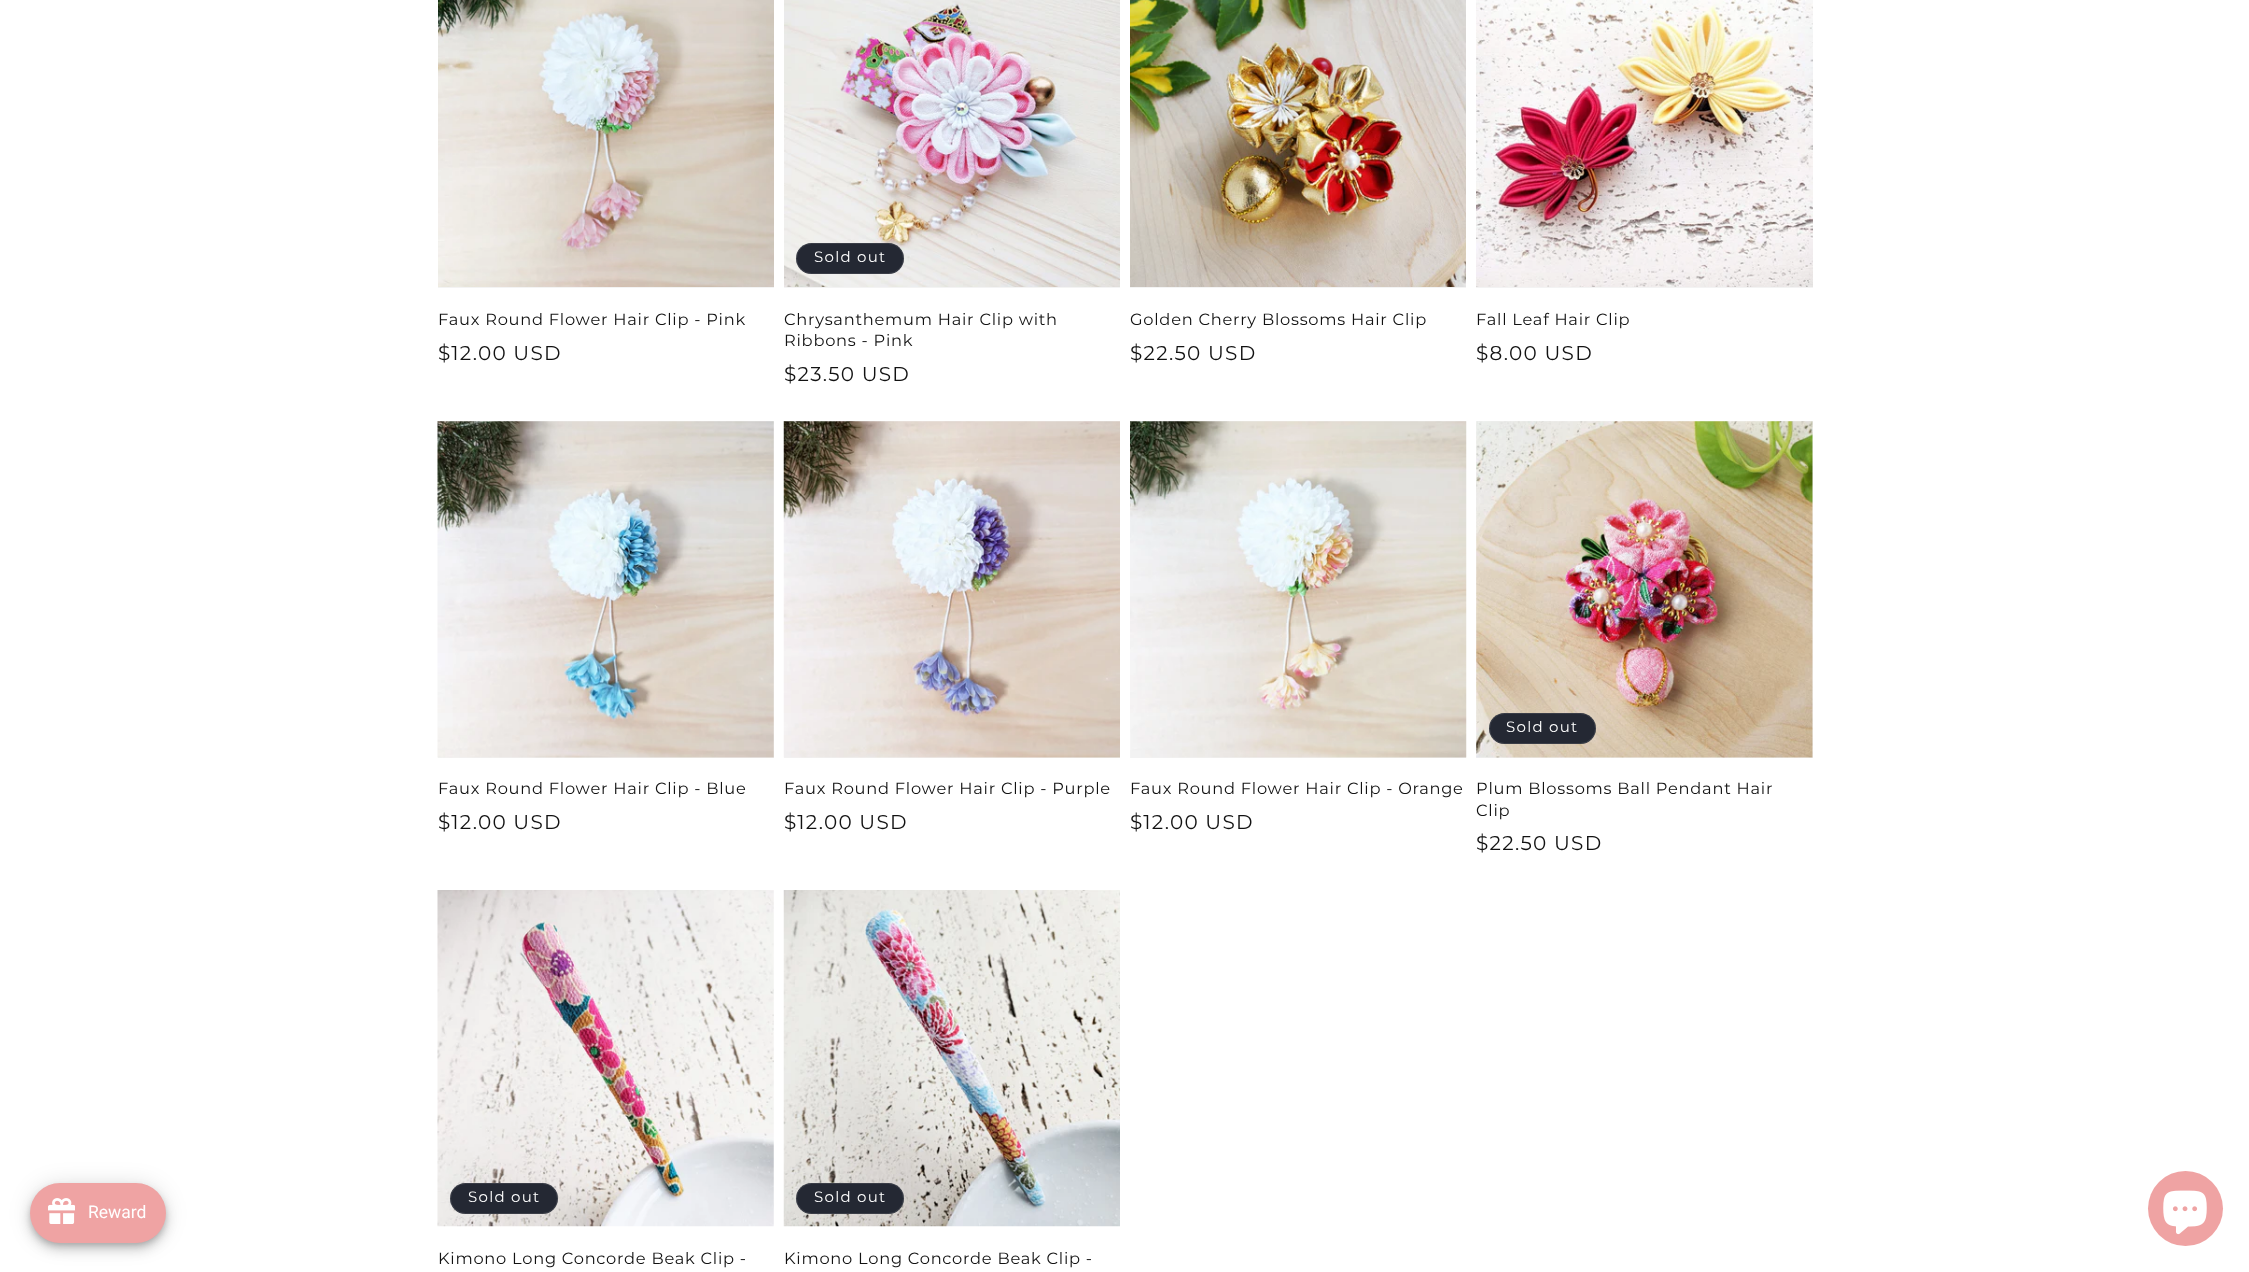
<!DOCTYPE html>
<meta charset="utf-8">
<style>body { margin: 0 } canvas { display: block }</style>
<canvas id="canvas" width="2249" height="1272"></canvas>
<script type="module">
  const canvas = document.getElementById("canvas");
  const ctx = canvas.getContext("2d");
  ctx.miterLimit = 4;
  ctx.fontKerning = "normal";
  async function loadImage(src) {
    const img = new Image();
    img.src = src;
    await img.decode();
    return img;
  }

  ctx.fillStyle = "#ffffff";
  ctx.fillRect(0, 0, 2249, 1272);
  ctx.fillStyle = "rgba(0, 0, 0, 0.12)";
  ctx.filter = "blur(11px)";
  ctx.beginPath();
  ctx.roundRect(30, 1184, 136, 60, 30);
  ctx.fill();
  ctx.filter = "none";
  ctx.fillStyle = "rgba(0, 0, 0, 0.14)";
  ctx.filter = "blur(6px)";
  ctx.beginPath();
  ctx.roundRect(30, 1190, 136, 60, 30);
  ctx.fill();
  ctx.filter = "none";
  ctx.fillStyle = "rgba(0, 0, 0, 0.2)";
  ctx.filter = "blur(3px)";
  ctx.beginPath();
  ctx.roundRect(31, 1188, 134, 57, 28.5);
  ctx.fill();
  ctx.filter = "none";
  ctx.fillStyle = "#efa3a3";
  ctx.beginPath();
  ctx.roundRect(30, 1183, 136, 60, 30);
  ctx.fill();
  ctx.drawImage(await loadImage("img1.png"), 48, 1198, 27, 26);
  ctx.font = "17.5px Roboto";
  ctx.fillStyle = "#ffffff";
  ctx.fillText("Reward", 88, 1218);
  ctx.fillStyle = "#f3f3f3";
  ctx.fillRect(438, 287, 336, 1);
  ctx.drawImage(await loadImage("img2.png"), 438, 0, 336, 287);
  ctx.letterSpacing = "0.75px";
  ctx.font = "16.25px Montserrat";
  ctx.fillStyle = "#121212";
  ctx.fillText("Faux Round Flower Hair Clip - Pink", 438, 325);
  ctx.letterSpacing = "1.25px";
  ctx.font = "20px Montserrat";
  ctx.fillText("$12.00 USD", 438, 360);
  ctx.fillStyle = "#f3f3f3";
  ctx.fillRect(784, 287, 336, 1);
  ctx.drawImage(await loadImage("img3.png"), 784, 0, 336, 287);
  ctx.fillStyle = "#242833";
  ctx.beginPath();
  ctx.roundRect(796, 243, 108, 31, 15.5);
  ctx.fill();
  ctx.beginPath();
  ctx.roundRect(796.5, 243.5, 107, 30, 15);
  ctx.strokeStyle = "rgba(255, 255, 255, 0.1)";
  ctx.stroke();
  ctx.font = "15px Montserrat";
  ctx.fillStyle = "#ffffff";
  ctx.fillText("Sold out", 814, 262);
  ctx.letterSpacing = "0.75px";
  ctx.font = "16.25px Montserrat";
  ctx.fillStyle = "#121212";
  ctx.fillText("Chrysanthemum Hair Clip with", 784, 325);
  ctx.fillText("Ribbons - Pink", 784, 346);
  ctx.letterSpacing = "1.25px";
  ctx.font = "20px Montserrat";
  ctx.fillText("$23.50 USD", 784, 381);
  ctx.fillStyle = "#f3f3f3";
  ctx.fillRect(1130, 287, 336, 1);
  ctx.drawImage(await loadImage("img4.png"), 1130, 0, 336, 287);
  ctx.letterSpacing = "0.75px";
  ctx.font = "16.25px Montserrat";
  ctx.fillStyle = "#121212";
  ctx.fillText("Golden Cherry Blossoms Hair Clip", 1130, 325);
  ctx.letterSpacing = "1.25px";
  ctx.font = "20px Montserrat";
  ctx.fillText("$22.50 USD", 1130, 360);
  ctx.fillStyle = "#f3f3f3";
  ctx.fillRect(1476, 287, 337, 1);
  ctx.drawImage(await loadImage("img5.png"), 1476, 0, 337, 287);
  ctx.letterSpacing = "0.75px";
  ctx.font = "16.25px Montserrat";
  ctx.fillStyle = "#121212";
  ctx.fillText("Fall Leaf Hair Clip", 1476, 325);
  ctx.letterSpacing = "1.25px";
  ctx.font = "20px Montserrat";
  ctx.fillText("$8.00 USD", 1476, 360);
  ctx.fillStyle = "#f3f3f3";
  ctx.fillRect(438, 421, 336, 337);
  ctx.drawImage(await loadImage("img6.png"), 437, 421, 337, 337);
  ctx.letterSpacing = "0.75px";
  ctx.font = "16.25px Montserrat";
  ctx.fillStyle = "#121212";
  ctx.fillText("Faux Round Flower Hair Clip - Blue", 438, 794);
  ctx.letterSpacing = "1.25px";
  ctx.font = "20px Montserrat";
  ctx.fillText("$12.00 USD", 438, 829);
  ctx.fillStyle = "#f3f3f3";
  ctx.fillRect(784, 421, 336, 337);
  ctx.drawImage(await loadImage("img7.png"), 783, 421, 337, 337);
  ctx.letterSpacing = "0.75px";
  ctx.font = "16.25px Montserrat";
  ctx.fillStyle = "#121212";
  ctx.fillText("Faux Round Flower Hair Clip - Purple", 784, 794);
  ctx.letterSpacing = "1.25px";
  ctx.font = "20px Montserrat";
  ctx.fillText("$12.00 USD", 784, 829);
  ctx.fillStyle = "#f3f3f3";
  ctx.fillRect(1130, 421, 336, 337);
  ctx.drawImage(await loadImage("img8.png"), 1130, 421, 337, 337);
  ctx.letterSpacing = "0.75px";
  ctx.font = "16.25px Montserrat";
  ctx.fillStyle = "#121212";
  ctx.fillText("Faux Round Flower Hair Clip - Orange", 1130, 794);
  ctx.letterSpacing = "1.25px";
  ctx.font = "20px Montserrat";
  ctx.fillText("$12.00 USD", 1130, 829);
  ctx.fillStyle = "#f3f3f3";
  ctx.fillRect(1476, 421, 337, 337);
  ctx.drawImage(await loadImage("img9.png"), 1476, 421, 337, 337);
  ctx.fillStyle = "#242833";
  ctx.beginPath();
  ctx.roundRect(1489, 713, 107, 31, 15.5);
  ctx.fill();
  ctx.beginPath();
  ctx.roundRect(1489.5, 713.5, 106, 30, 15);
  ctx.stroke();
  ctx.font = "15px Montserrat";
  ctx.fillStyle = "#ffffff";
  ctx.fillText("Sold out", 1506, 732);
  ctx.letterSpacing = "0.75px";
  ctx.font = "16.25px Montserrat";
  ctx.fillStyle = "#121212";
  ctx.fillText("Plum Blossoms Ball Pendant Hair", 1476, 794);
  ctx.fillText("Clip", 1476, 816);
  ctx.letterSpacing = "1.25px";
  ctx.font = "20px Montserrat";
  ctx.fillText("$22.50 USD", 1476, 850);
  ctx.drawImage(await loadImage("img10.png"), 437, 890, 337, 337);
  ctx.fillStyle = "#242833";
  ctx.beginPath();
  ctx.roundRect(450, 1183, 108, 31, 15.5);
  ctx.fill();
  ctx.beginPath();
  ctx.roundRect(450.5, 1183.5, 107, 30, 15);
  ctx.stroke();
  ctx.font = "15px Montserrat";
  ctx.fillStyle = "#ffffff";
  ctx.fillText("Sold out", 468, 1202);
  ctx.letterSpacing = "0.75px";
  ctx.font = "16.25px Montserrat";
  ctx.fillStyle = "#121212";
  ctx.fillText("Kimono Long Concorde Beak Clip -", 438, 1264);
  ctx.drawImage(await loadImage("img11.png"), 783, 890, 337, 337);
  ctx.fillStyle = "#242833";
  ctx.beginPath();
  ctx.roundRect(796, 1183, 108, 31, 15.5);
  ctx.fill();
  ctx.beginPath();
  ctx.roundRect(796.5, 1183.5, 107, 30, 15);
  ctx.stroke();
  ctx.letterSpacing = "1.25px";
  ctx.font = "15px Montserrat";
  ctx.fillStyle = "#ffffff";
  ctx.fillText("Sold out", 814, 1202);
  ctx.letterSpacing = "0.75px";
  ctx.font = "16.25px Montserrat";
  ctx.fillStyle = "#121212";
  ctx.fillText("Kimono Long Concorde Beak Clip -", 784, 1264);
  ctx.fillStyle = "#efa3a3";
  ctx.beginPath();
  ctx.arc(2185.5, 1208.5, 37.5, 0, Math.PI * 2);
  ctx.fill();
  ctx.drawImage(await loadImage("img12.png"), 2163, 1190, 44, 45);
</script>
